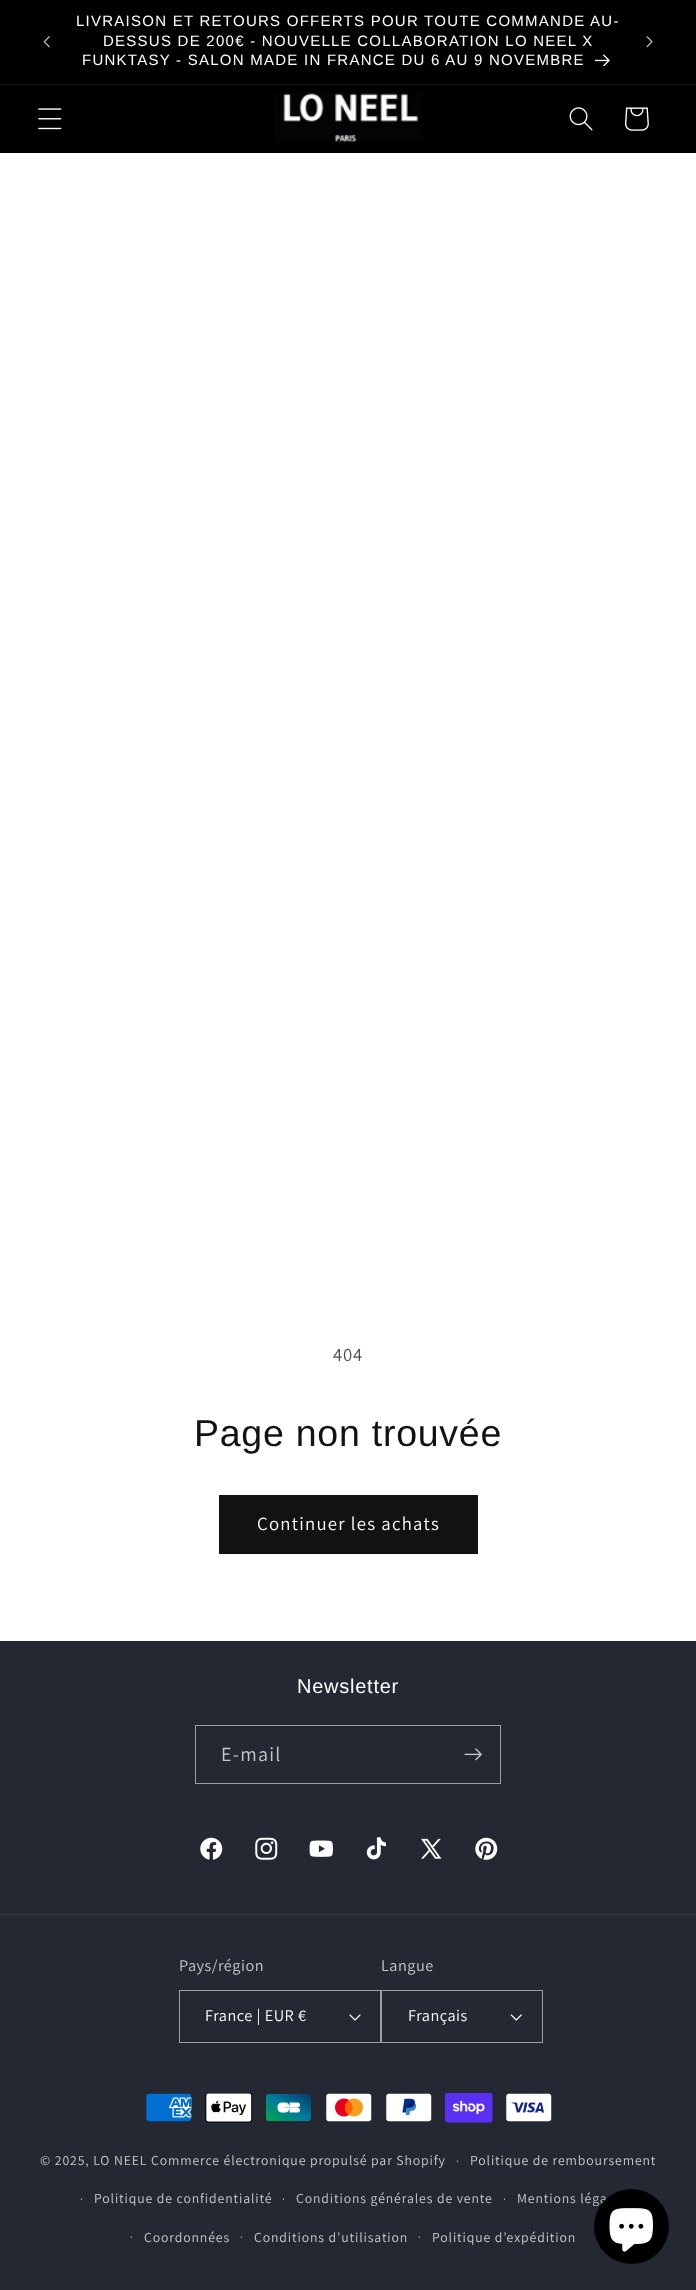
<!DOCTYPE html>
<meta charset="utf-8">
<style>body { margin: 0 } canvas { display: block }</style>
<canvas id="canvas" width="696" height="2290"></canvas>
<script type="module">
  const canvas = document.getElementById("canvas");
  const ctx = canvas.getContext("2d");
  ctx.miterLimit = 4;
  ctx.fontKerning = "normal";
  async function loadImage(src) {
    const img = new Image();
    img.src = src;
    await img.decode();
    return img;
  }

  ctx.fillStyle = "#ffffff";
  ctx.fillRect(0, 0, 696, 2290);
  ctx.fillStyle = "#000000";
  ctx.fillRect(0, 0, 696, 84);
  ctx.fillStyle = "#141414";
  ctx.fillRect(0, 84, 696, 1);
  ctx.drawImage(await loadImage("img1.png"), 43, 36, 7, 12);
  ctx.letterSpacing = "1.25px";
  ctx.font = "15px Liberation Sans";
  ctx.fillStyle = "#ffffff";
  ctx.fillText("LIVRAISON ET RETOURS OFFERTS POUR TOUTE COMMANDE AU-", 76, 26);
  ctx.fillText("DESSUS DE 200€ - NOUVELLE COLLABORATION LO NEEL X", 103, 46);
  ctx.fillText("FUNKTASY - SALON MADE IN FRANCE DU 6 AU 9 NOVEMBRE", 82, 65);
  ctx.drawImage(await loadImage("img2.png"), 595, 54, 15, 12);
  ctx.drawImage(await loadImage("img3.png"), 646, 36, 7, 12);
  ctx.fillStyle = "#000000";
  ctx.fillRect(0, 85, 696, 68);
  ctx.drawImage(await loadImage("img4.png"), 38, 108, 24, 22);
  ctx.drawImage(await loadImage("img5.png"), 274, 93, 149, 50);
  ctx.drawImage(await loadImage("img6.png"), 569, 107, 24, 24);
  ctx.drawImage(await loadImage("img7.png"), 625, 107, 24, 24);
  ctx.letterSpacing = "0.75px";
  ctx.font = "18.75px Assistant";
  ctx.fillStyle = "#4d4d4d";
  ctx.fillText("404", 333, 1361);
  ctx.font = "37.5px Liberation Sans";
  ctx.fillStyle = "#121212";
  ctx.fillText("Page non trouvée", 194, 1446);
  ctx.fillRect(219, 1495, 259, 59);
  ctx.letterSpacing = "1.25px";
  ctx.font = "18.75px Assistant";
  ctx.fillStyle = "#ffffff";
  ctx.fillText("Continuer les achats", 257, 1530);
  ctx.fillStyle = "#242833";
  ctx.fillRect(0, 1641, 696, 649);
  ctx.letterSpacing = "0.75px";
  ctx.font = "20px Liberation Sans";
  ctx.fillStyle = "#ffffff";
  ctx.fillText("Newsletter", 297, 1693);
  ctx.strokeStyle = "#9c9ea3";
  ctx.strokeRect(195.5, 1725.5, 305, 58);
  ctx.letterSpacing = "1.25px";
  ctx.font = "20px Assistant";
  ctx.fillStyle = "#c8c9cc";
  ctx.fillText("E-mail", 221, 1761);
  ctx.drawImage(await loadImage("img8.png"), 464, 1748, 18, 13);
  ctx.drawImage(await loadImage("img9.png"), 200, 1837, 23, 23);
  ctx.drawImage(await loadImage("img10.png"), 255, 1837, 23, 23);
  ctx.drawImage(await loadImage("img11.png"), 309, 1840, 24, 17);
  ctx.drawImage(await loadImage("img12.png"), 366, 1837, 20, 23);
  ctx.drawImage(await loadImage("img13.png"), 421, 1838, 21, 21);
  ctx.drawImage(await loadImage("img14.png"), 475, 1837, 23, 23);
  ctx.fillStyle = "#363943";
  ctx.fillRect(0, 1914, 696, 1);
  ctx.letterSpacing = "0.5px";
  ctx.font = "16.25px Assistant";
  ctx.fillStyle = "#c8c9cc";
  ctx.fillText("Pays/région", 179, 1971);
  ctx.drawImage(await loadImage("img15.png"), 349, 2014, 12, 7);
  ctx.strokeRect(179.5, 1990.5, 201, 52);
  ctx.fillStyle = "#ffffff";
  ctx.fillText("France | EUR €", 205, 2021);
  ctx.fillStyle = "#c8c9cc";
  ctx.fillText("Langue", 381, 1971);
  ctx.drawImage(await loadImage("img16.png"), 510, 2014, 12, 7);
  ctx.strokeRect(381.5, 1990.5, 161, 52);
  ctx.fillStyle = "#ffffff";
  ctx.fillText("Français", 408, 2021);
  ctx.drawImage(await loadImage("img17.png"), 146, 2093, 46, 29);
  ctx.drawImage(await loadImage("img18.png"), 205, 2093, 48, 30);
  ctx.drawImage(await loadImage("img19.png"), 266, 2094, 45, 27);
  ctx.drawImage(await loadImage("img20.png"), 326, 2093, 46, 29);
  ctx.drawImage(await loadImage("img21.png"), 386, 2093, 46, 29);
  ctx.drawImage(await loadImage("img22.png"), 445, 2093, 48, 30);
  ctx.drawImage(await loadImage("img23.png"), 506, 2093, 46, 29);
  ctx.letterSpacing = "0.88px";
  ctx.font = "13.75px Assistant";
  ctx.fillStyle = "#c8c9cc";
  ctx.fillText("© 2025, LO NEEL Commerce électronique propulsé par Shopify", 40, 2165);
  ctx.font = "12px Assistant";
  ctx.fillText("·", 456, 2165);
  ctx.font = "13.75px Assistant";
  ctx.fillText("Politique de remboursement", 470, 2165);
  ctx.font = "12px Assistant";
  ctx.fillText("·", 80, 2203);
  ctx.font = "13.75px Assistant";
  ctx.fillText("Politique de confidentialité", 94, 2203);
  ctx.font = "12px Assistant";
  ctx.fillText("·", 282, 2203);
  ctx.font = "13.75px Assistant";
  ctx.fillText("Conditions générales de vente", 296, 2203);
  ctx.font = "12px Assistant";
  ctx.fillText("·", 503, 2203);
  ctx.font = "13.75px Assistant";
  ctx.fillText("Mentions léga", 517, 2203);
  ctx.font = "12px Assistant";
  ctx.fillText("·", 130, 2241);
  ctx.font = "13.75px Assistant";
  ctx.fillText("Coordonnées", 144, 2242);
  ctx.font = "12px Assistant";
  ctx.fillText("·", 240, 2241);
  ctx.font = "13.75px Assistant";
  ctx.fillText("Conditions d’utilisation", 254, 2242);
  ctx.font = "12px Assistant";
  ctx.fillText("·", 418, 2241);
  ctx.font = "13.75px Assistant";
  ctx.fillText("Politique d’expédition", 432, 2242);
  ctx.fillStyle = "#000000";
  ctx.beginPath();
  ctx.arc(631.5, 2226.5, 37.5, 0, Math.PI * 2);
  ctx.fill();
  ctx.drawImage(await loadImage("img24.png"), 609, 2208, 44, 44);
</script>
